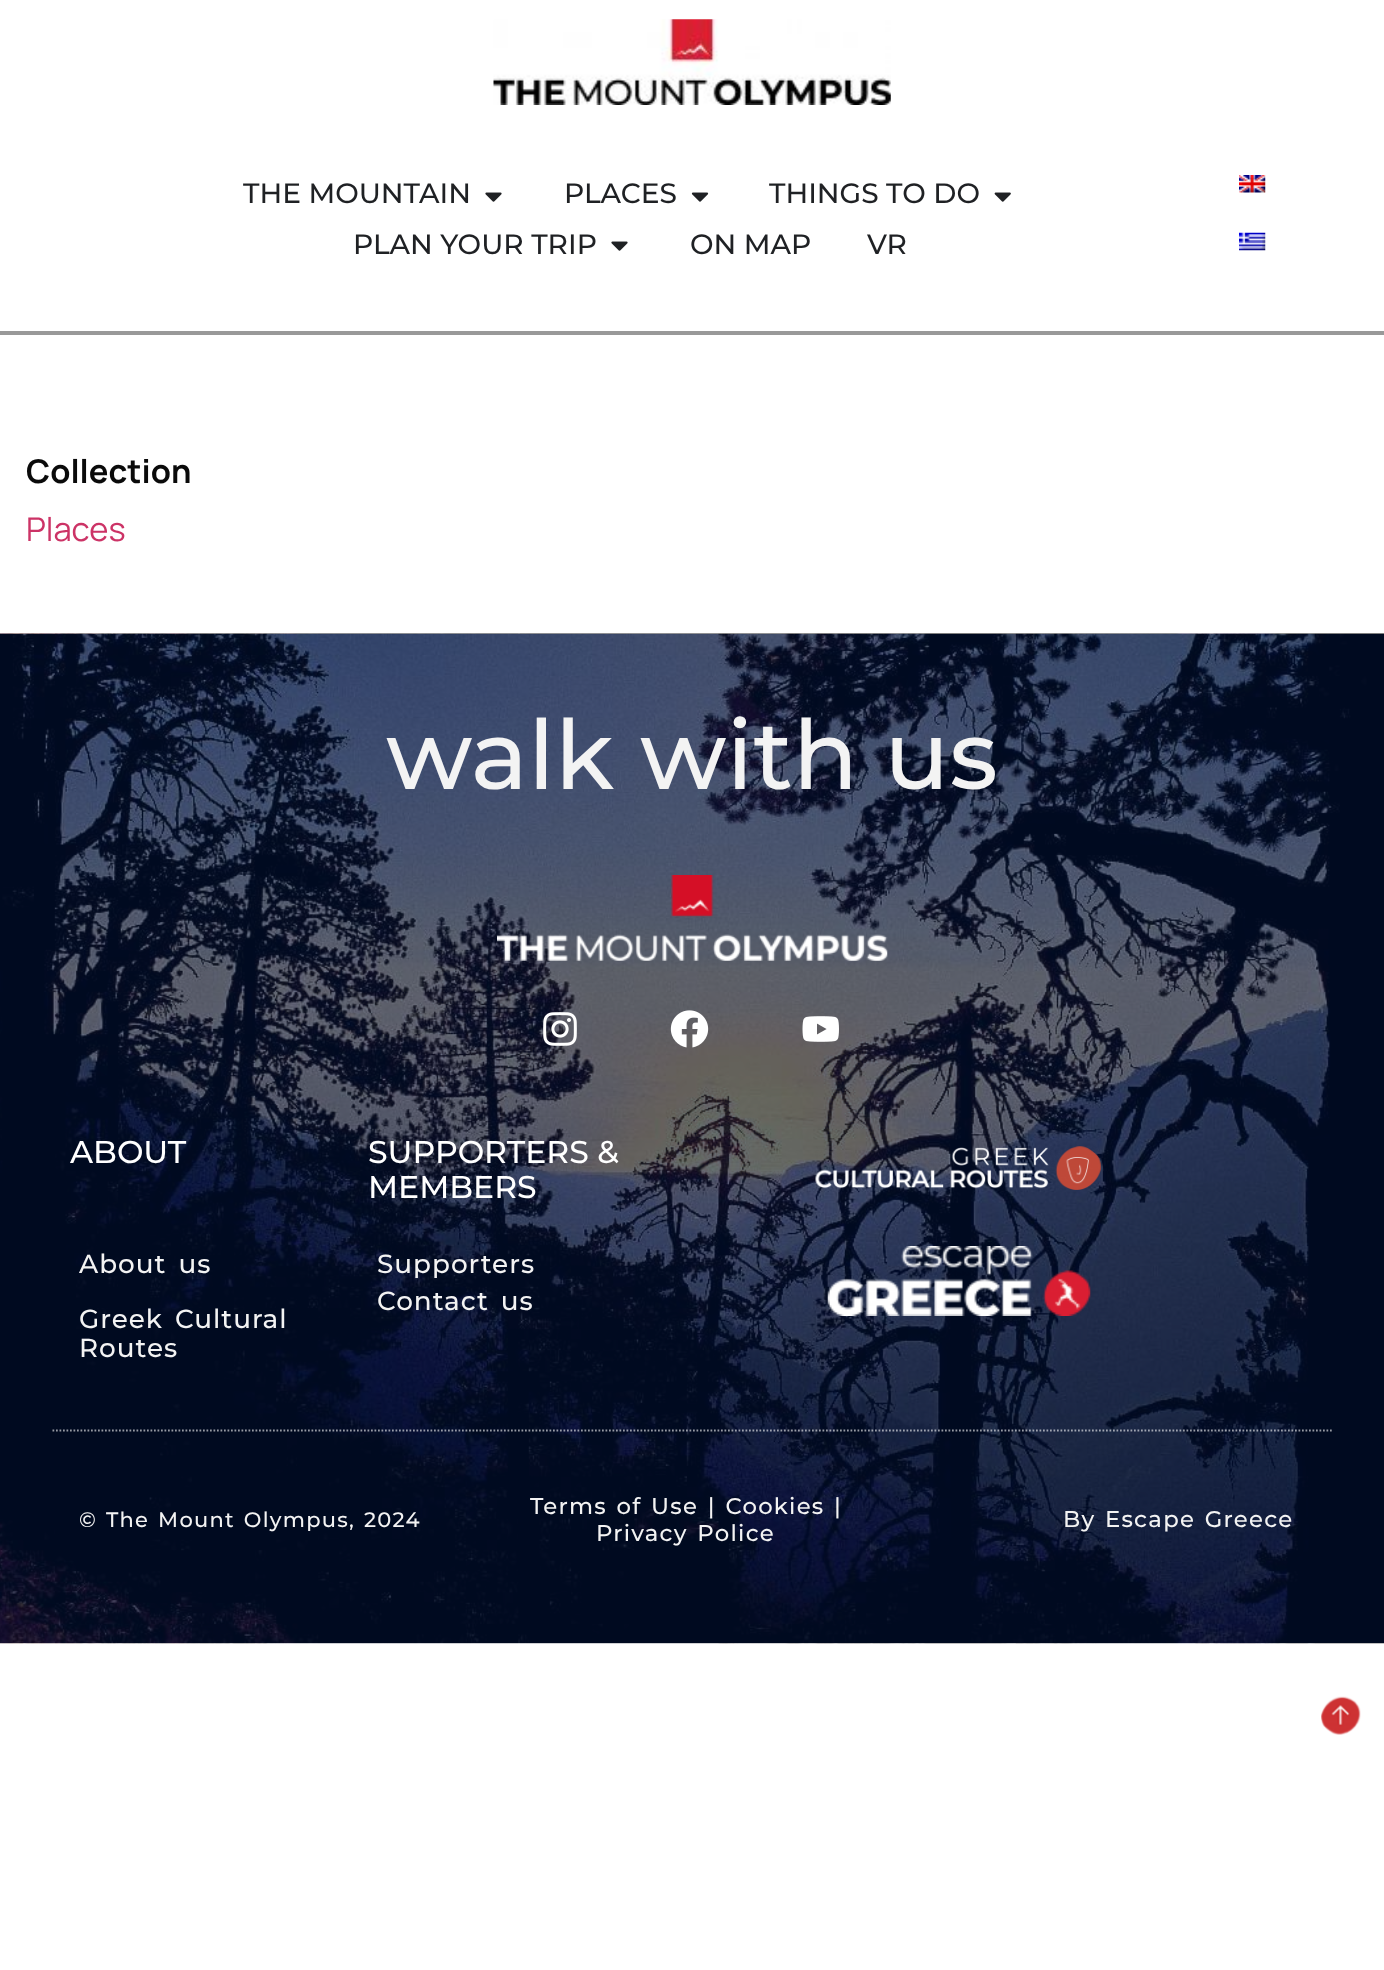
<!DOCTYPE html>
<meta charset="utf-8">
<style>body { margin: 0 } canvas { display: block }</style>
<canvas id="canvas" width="1384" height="1970"></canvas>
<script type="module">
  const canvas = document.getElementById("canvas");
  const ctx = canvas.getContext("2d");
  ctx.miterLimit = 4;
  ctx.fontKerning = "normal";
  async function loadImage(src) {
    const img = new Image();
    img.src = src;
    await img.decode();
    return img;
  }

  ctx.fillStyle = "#ffffff";
  ctx.fillRect(0, 0, 1384, 1970);
  ctx.drawImage(await loadImage("img1.png"), 493, 19, 398, 86);
  ctx.font = "500 28px Montserrat";
  ctx.fillStyle = "#1f2124";
  ctx.fillText("THE MOUNTAIN", 243, 203);
  ctx.drawImage(await loadImage("img2.png"), 485, 192, 17, 10);
  ctx.fillText("PLACES", 564, 203);
  ctx.drawImage(await loadImage("img3.png"), 691, 192, 18, 10);
  ctx.fillText("THINGS TO DO", 769, 203);
  ctx.drawImage(await loadImage("img4.png"), 994, 192, 17, 10);
  ctx.fillText("PLAN YOUR TRIP", 353, 254);
  ctx.drawImage(await loadImage("img2.png"), 611, 241, 17, 10);
  ctx.fillText("ON MAP", 690, 254);
  ctx.fillText("VR", 867, 254);
  ctx.drawImage(await loadImage("img5.png"), 1239, 175, 27, 18);
  ctx.drawImage(await loadImage("img6.png"), 1239, 232, 27, 19);
  ctx.fillStyle = "#999999";
  ctx.fillRect(0, 331, 1384, 4);
  ctx.font = "bold 32.75px Manrope";
  ctx.fillStyle = "#0a0a0a";
  ctx.fillText("Collection", 26, 483);
  ctx.font = "32.75px Manrope";
  ctx.fillStyle = "#cc3366";
  ctx.fillText("Places", 26, 541);
  ctx.drawImage(await loadImage("img7.png"), 0, 633, 1384, 1011);
  ctx.font = "500 96.25px Montserrat";
  ctx.fillStyle = "#f3f3f3";
  ctx.fillText("walk with us", 386, 789);
  ctx.drawImage(await loadImage("img8.png"), 497, 875, 391, 86);
  ctx.drawImage(await loadImage("img9.png"), 543, 1012, 34, 34);
  ctx.drawImage(await loadImage("img10.png"), 670, 1010, 39, 38);
  ctx.drawImage(await loadImage("img11.png"), 802, 1016, 37, 26);
  ctx.font = "500 31.5px Montserrat";
  ctx.fillStyle = "#ffffff";
  ctx.fillText("ABOUT", 70, 1163);
  ctx.letterSpacing = "1px";
  ctx.wordSpacing = "4px";
  ctx.font = "500 26.25px Montserrat";
  ctx.fillStyle = "#f3f3f3";
  ctx.fillText("About us", 79, 1273);
  ctx.fillText("Greek Cultural", 79, 1328);
  ctx.wordSpacing = "0px";
  ctx.fillText("Routes", 79, 1357);
  ctx.letterSpacing = "0px";
  ctx.font = "500 31.5px Montserrat";
  ctx.fillStyle = "#ffffff";
  ctx.fillText("SUPPORTERS &", 368, 1163);
  ctx.fillText("MEMBERS", 368, 1198);
  ctx.letterSpacing = "1px";
  ctx.font = "500 26.25px Montserrat";
  ctx.fillStyle = "#f3f3f3";
  ctx.fillText("Supporters", 377, 1273);
  ctx.wordSpacing = "4px";
  ctx.fillText("Contact us", 377, 1310);
  ctx.drawImage(await loadImage("img12.png"), 815, 1146, 286, 44);
  ctx.drawImage(await loadImage("img13.png"), 827, 1246, 264, 70);
  ctx.beginPath();
  ctx.moveTo(52.5, 1430.5);
  ctx.lineTo(1332, 1430.5);
  ctx.strokeStyle = "rgba(255, 255, 255, 0.59)";
  ctx.lineWidth = 1.8;
  ctx.setLineDash([1.75, 1.75]);
  ctx.stroke();
  ctx.letterSpacing = "1.25px";
  ctx.wordSpacing = "2px";
  ctx.font = "500 21px Montserrat";
  ctx.fillText("© The Mount Olympus, 2024", 79, 1527);
  ctx.wordSpacing = "2.25px";
  ctx.font = "500 22.75px Montserrat";
  ctx.fillText("Terms of Use | Cookies |", 530, 1514);
  ctx.fillText("Privacy Police", 596, 1541);
  ctx.fillText("By Escape Greece", 1063, 1527);
  ctx.drawImage(await loadImage("img14.png"), 1321, 1696, 40, 39);
</script>
